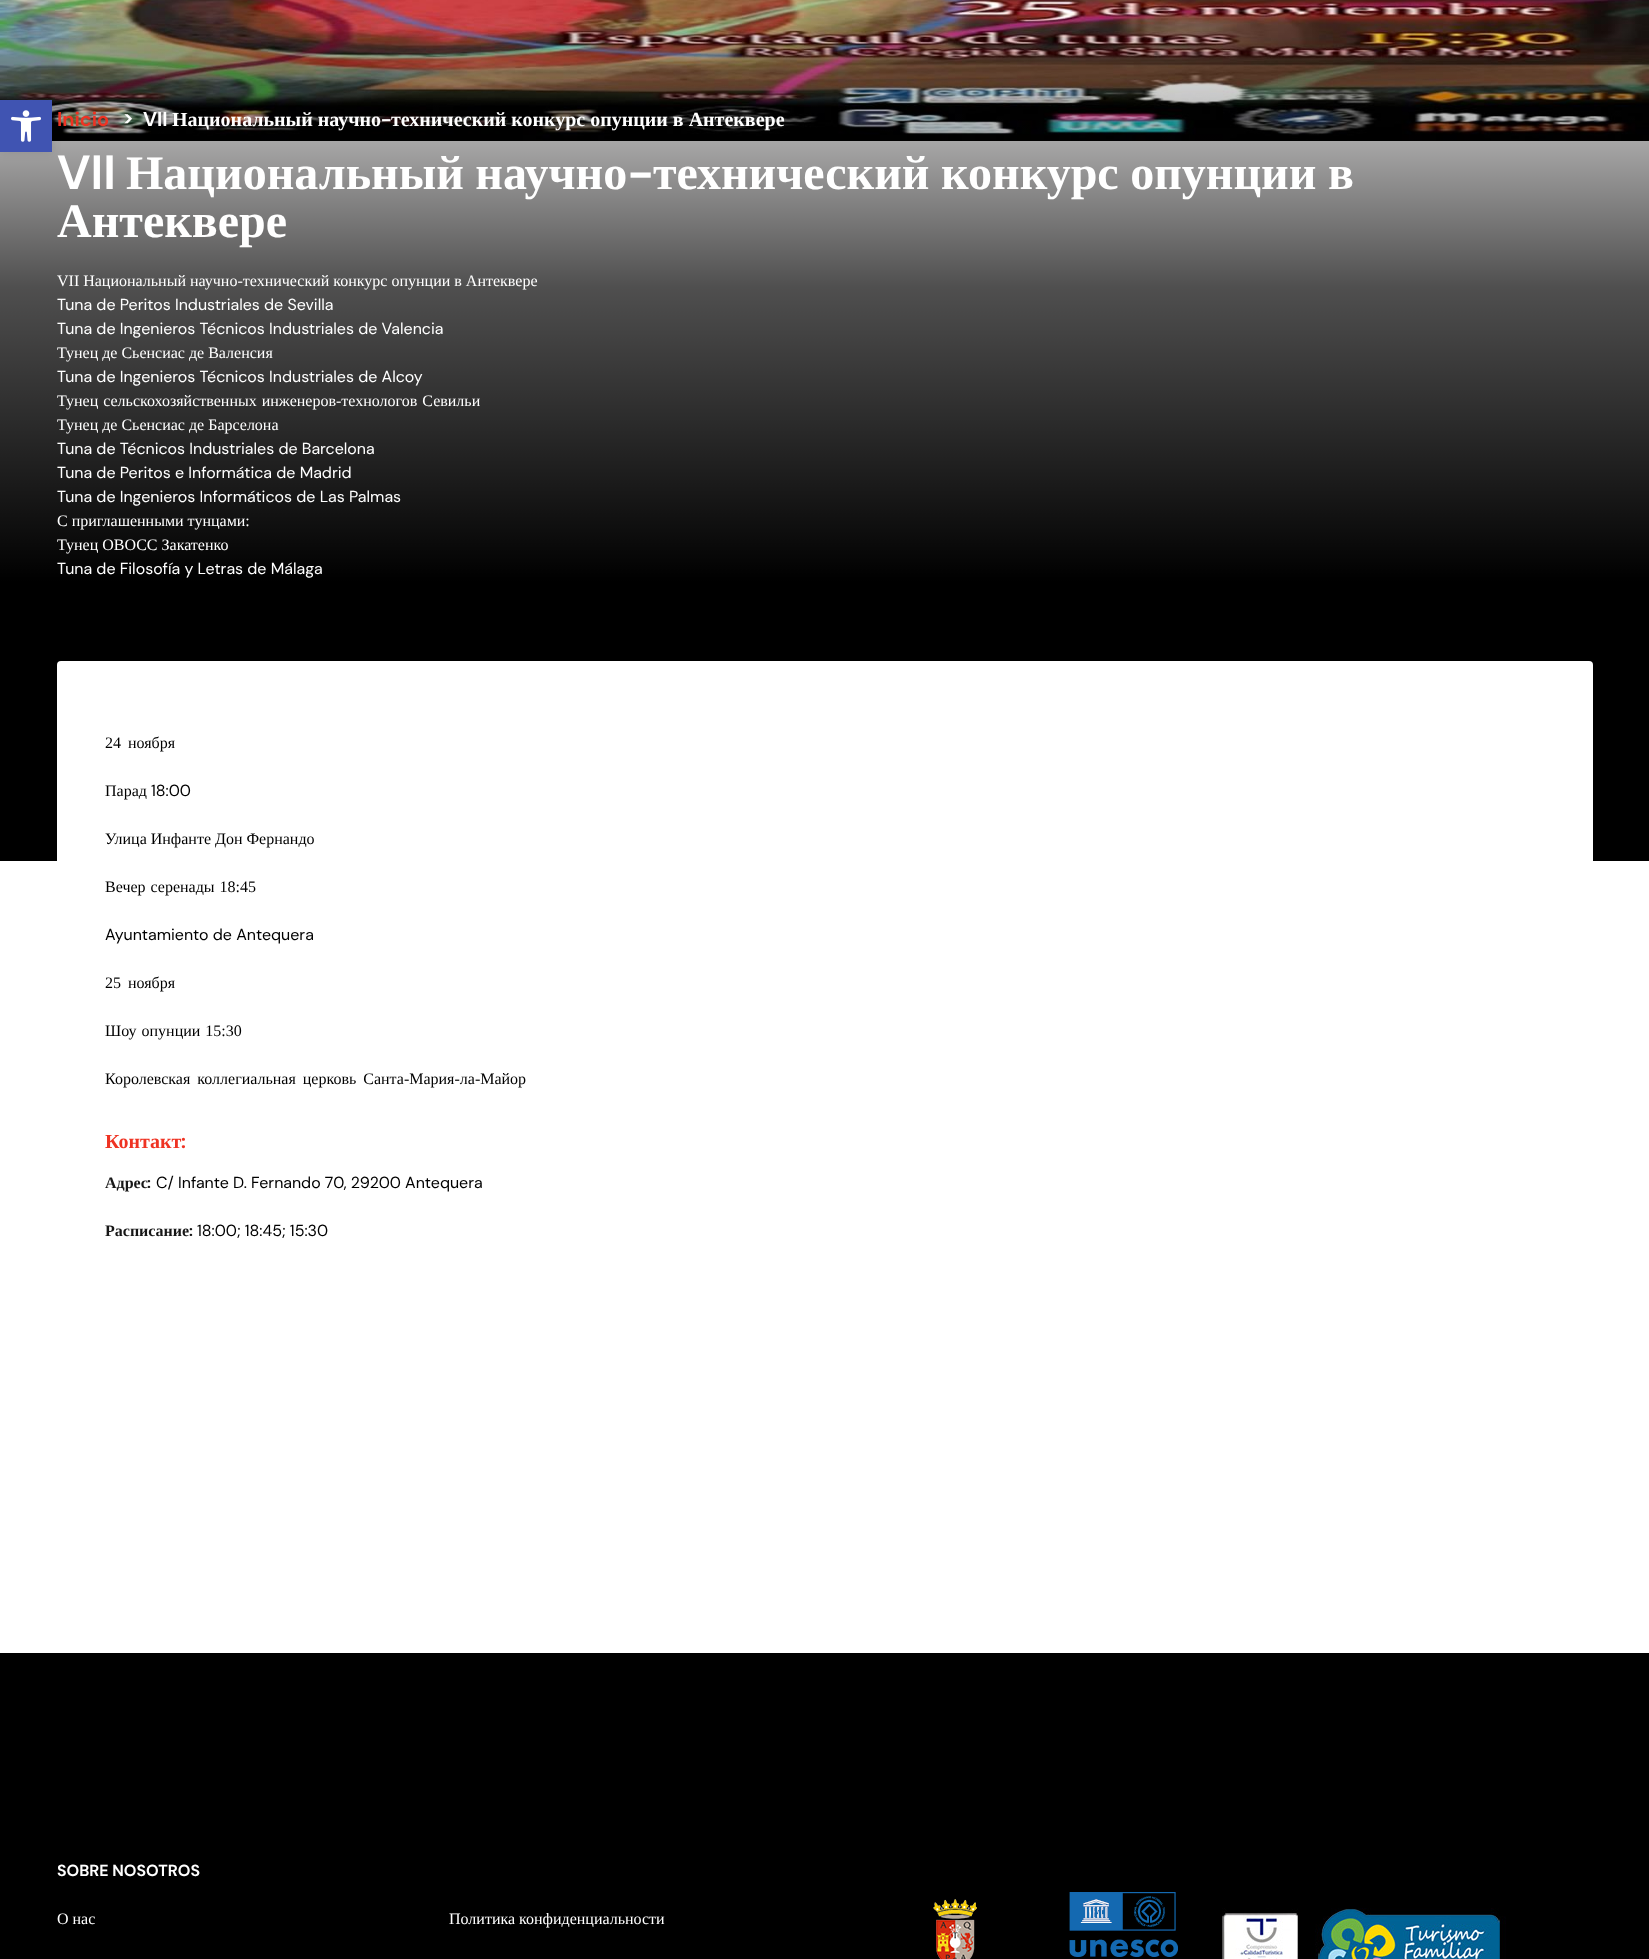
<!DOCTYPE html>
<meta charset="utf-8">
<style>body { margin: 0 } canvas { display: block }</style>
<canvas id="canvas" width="1649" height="1959"></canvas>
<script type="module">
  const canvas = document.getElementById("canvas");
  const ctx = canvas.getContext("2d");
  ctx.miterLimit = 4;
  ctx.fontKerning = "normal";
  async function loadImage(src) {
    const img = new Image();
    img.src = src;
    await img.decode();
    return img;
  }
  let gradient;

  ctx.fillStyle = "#f6f5f5";
  ctx.fillRect(0, 0, 1649, 1959);
  ctx.drawImage(await loadImage("img2.png"), 0, 0, 1649, 141);
  gradient = ctx.createLinearGradient(825, 805, 825, 9);
  gradient.addColorStop(0.28, "#000000");
  gradient.addColorStop(0.65, "rgba(0, 0, 0, 0.68)");
  gradient.addColorStop(1, "rgba(0, 0, 0, 0)");
  ctx.fillStyle = gradient;
  ctx.fillRect(0, 18, 1649, 643);
  ctx.fillStyle = "rgba(0, 0, 0, 0.1)";
  ctx.filter = "blur(5px)";
  ctx.beginPath();
  ctx.rect(0, 100, 52, 52);
  ctx.fill();
  ctx.filter = "none";
  ctx.fillStyle = "#4054b2";
  ctx.fillRect(0, 100, 52, 52);
  ctx.drawImage(await loadImage("img1.png"), 11, 110, 30, 32);
  ctx.font = "bold 20px DM Sans";
  ctx.fillStyle = "#ef3323";
  ctx.fillText("Inicio", 57, 126);
  ctx.fillStyle = "#ffffff";
  ctx.fillText(">", 123, 126);
  ctx.fillText("VII", 143, 126);
  ctx.font = "bold 20px Liberation Serif";
  ctx.fillText("Национальный научно", 172, 126);
  ctx.font = "bold 20px DM Sans";
  ctx.fillText("-", 381, 126);
  ctx.font = "bold 20px Liberation Serif";
  ctx.fillText("технический конкурс опунции в Антеквере", 391, 126);
  ctx.font = "bold 48px DM Sans";
  ctx.fillText("VII", 57, 189);
  ctx.wordSpacing = "-0.5px";
  ctx.font = "bold 48px Liberation Serif";
  ctx.fillText("Национальный научно", 126, 189);
  ctx.wordSpacing = "0px";
  ctx.font = "bold 48px DM Sans";
  ctx.fillText("-", 628, 189);
  ctx.wordSpacing = "-0.5px";
  ctx.font = "bold 48px Liberation Serif";
  ctx.fillText("технический конкурс опунции в", 653, 189);
  ctx.wordSpacing = "0px";
  ctx.fillText("Антеквере", 57, 237);
  ctx.font = "16px Liberation Serif";
  ctx.fillText("VII Национальный научно-технический конкурс опунции в Антеквере", 57, 286);
  ctx.font = "16px DM Sans";
  ctx.fillText("Tuna de Peritos Industriales de Sevilla", 57, 310);
  ctx.fillText("Tuna de Ingenieros Técnicos Industriales de Valencia", 57, 334);
  ctx.font = "16px Liberation Serif";
  ctx.fillText("Тунец де Сьенсиас де Валенсия", 57, 358);
  ctx.font = "16px DM Sans";
  ctx.fillText("Tuna de Ingenieros Técnicos Industriales de Alcoy", 57, 382);
  ctx.wordSpacing = "1px";
  ctx.font = "16px Liberation Serif";
  ctx.fillText("Тунец сельскохозяйственных инженеров-технологов Севильи", 57, 406);
  ctx.wordSpacing = "0px";
  ctx.fillText("Тунец де Сьенсиас де Барселона", 57, 430);
  ctx.font = "16px DM Sans";
  ctx.fillText("Tuna de Técnicos Industriales de Barcelona", 57, 454);
  ctx.fillText("Tuna de Peritos e Informática de Madrid", 57, 478);
  ctx.fillText("Tuna de Ingenieros Informáticos de Las Palmas", 57, 502);
  ctx.font = "16px Liberation Serif";
  ctx.fillText("С приглашенными тунцами:", 57, 526);
  ctx.fillText("Тунец ОВОСС Закатенко", 57, 550);
  ctx.font = "16px DM Sans";
  ctx.fillText("Tuna de Filosofía y Letras de Málaga", 57, 574);
  ctx.fillStyle = "#000000";
  ctx.fillRect(0, 661, 1649, 200);
  ctx.fillStyle = "#ffffff";
  ctx.fillRect(0, 861, 1649, 792);
  ctx.fillStyle = "#000000";
  ctx.fillRect(0, 1653, 1649, 306);
  ctx.fillStyle = "#ffffff";
  ctx.beginPath();
  ctx.roundRect(57, 661, 1536, 652, 4);
  ctx.fill();
  ctx.wordSpacing = "3px";
  ctx.font = "16px Liberation Serif";
  ctx.fillStyle = "#000000";
  ctx.fillText("24 ноября", 105, 748);
  ctx.wordSpacing = "0px";
  ctx.fillText("Парад", 105, 796);
  ctx.font = "16px DM Sans";
  ctx.fillText("18:00", 151, 796);
  ctx.font = "16px Liberation Serif";
  ctx.fillText("Улица Инфанте Дон Фернандо", 105, 844);
  ctx.wordSpacing = "1px";
  ctx.fillText("Вечер серенады 18:45", 105, 892);
  ctx.wordSpacing = "0px";
  ctx.font = "16px DM Sans";
  ctx.fillText("Ayuntamiento de Antequera", 105, 940);
  ctx.wordSpacing = "3px";
  ctx.font = "16px Liberation Serif";
  ctx.fillText("25 ноября", 105, 988);
  ctx.wordSpacing = "1px";
  ctx.fillText("Шоу опунции 15:30", 105, 1036);
  ctx.wordSpacing = "3px";
  ctx.fillText("Королевская коллегиальная церковь Санта-Мария-ла-Майор", 105, 1084);
  ctx.wordSpacing = "0px";
  ctx.font = "bold 20px Liberation Serif";
  ctx.fillStyle = "#ef3323";
  ctx.fillText("Контакт", 105, 1148);
  ctx.font = "bold 20px DM Sans";
  ctx.fillText(":", 181, 1148);
  ctx.font = "bold 16px Liberation Serif";
  ctx.fillStyle = "#171717";
  ctx.fillText("Адрес", 105, 1188);
  ctx.font = "bold 16px DM Sans";
  ctx.fillText(":", 147, 1188);
  ctx.font = "16px DM Sans";
  ctx.fillStyle = "#000000";
  ctx.fillText("C/ Infante D. Fernando 70, 29200 Antequera", 156, 1188);
  ctx.font = "bold 16px Liberation Serif";
  ctx.fillStyle = "#171717";
  ctx.fillText("Расписание", 105, 1236);
  ctx.font = "bold 16px DM Sans";
  ctx.fillText(":", 189, 1236);
  ctx.font = "16px DM Sans";
  ctx.fillStyle = "#000000";
  ctx.fillText("18:00; 18:45; 15:30", 197, 1236);
  ctx.font = "bold 16px DM Sans";
  ctx.fillStyle = "#ffffff";
  ctx.fillText("SOBRE NOSOTROS", 57, 1876);
  ctx.font = "16px Liberation Serif";
  ctx.fillText("О нас", 57, 1924);
  ctx.fillText("Политика конфиденциальности", 449, 1924);
  ctx.drawImage(await loadImage("img3.png"), 933, 1892, 245, 67);
  ctx.drawImage(await loadImage("img4.png"), 1222, 1908, 284, 51);
</script>
